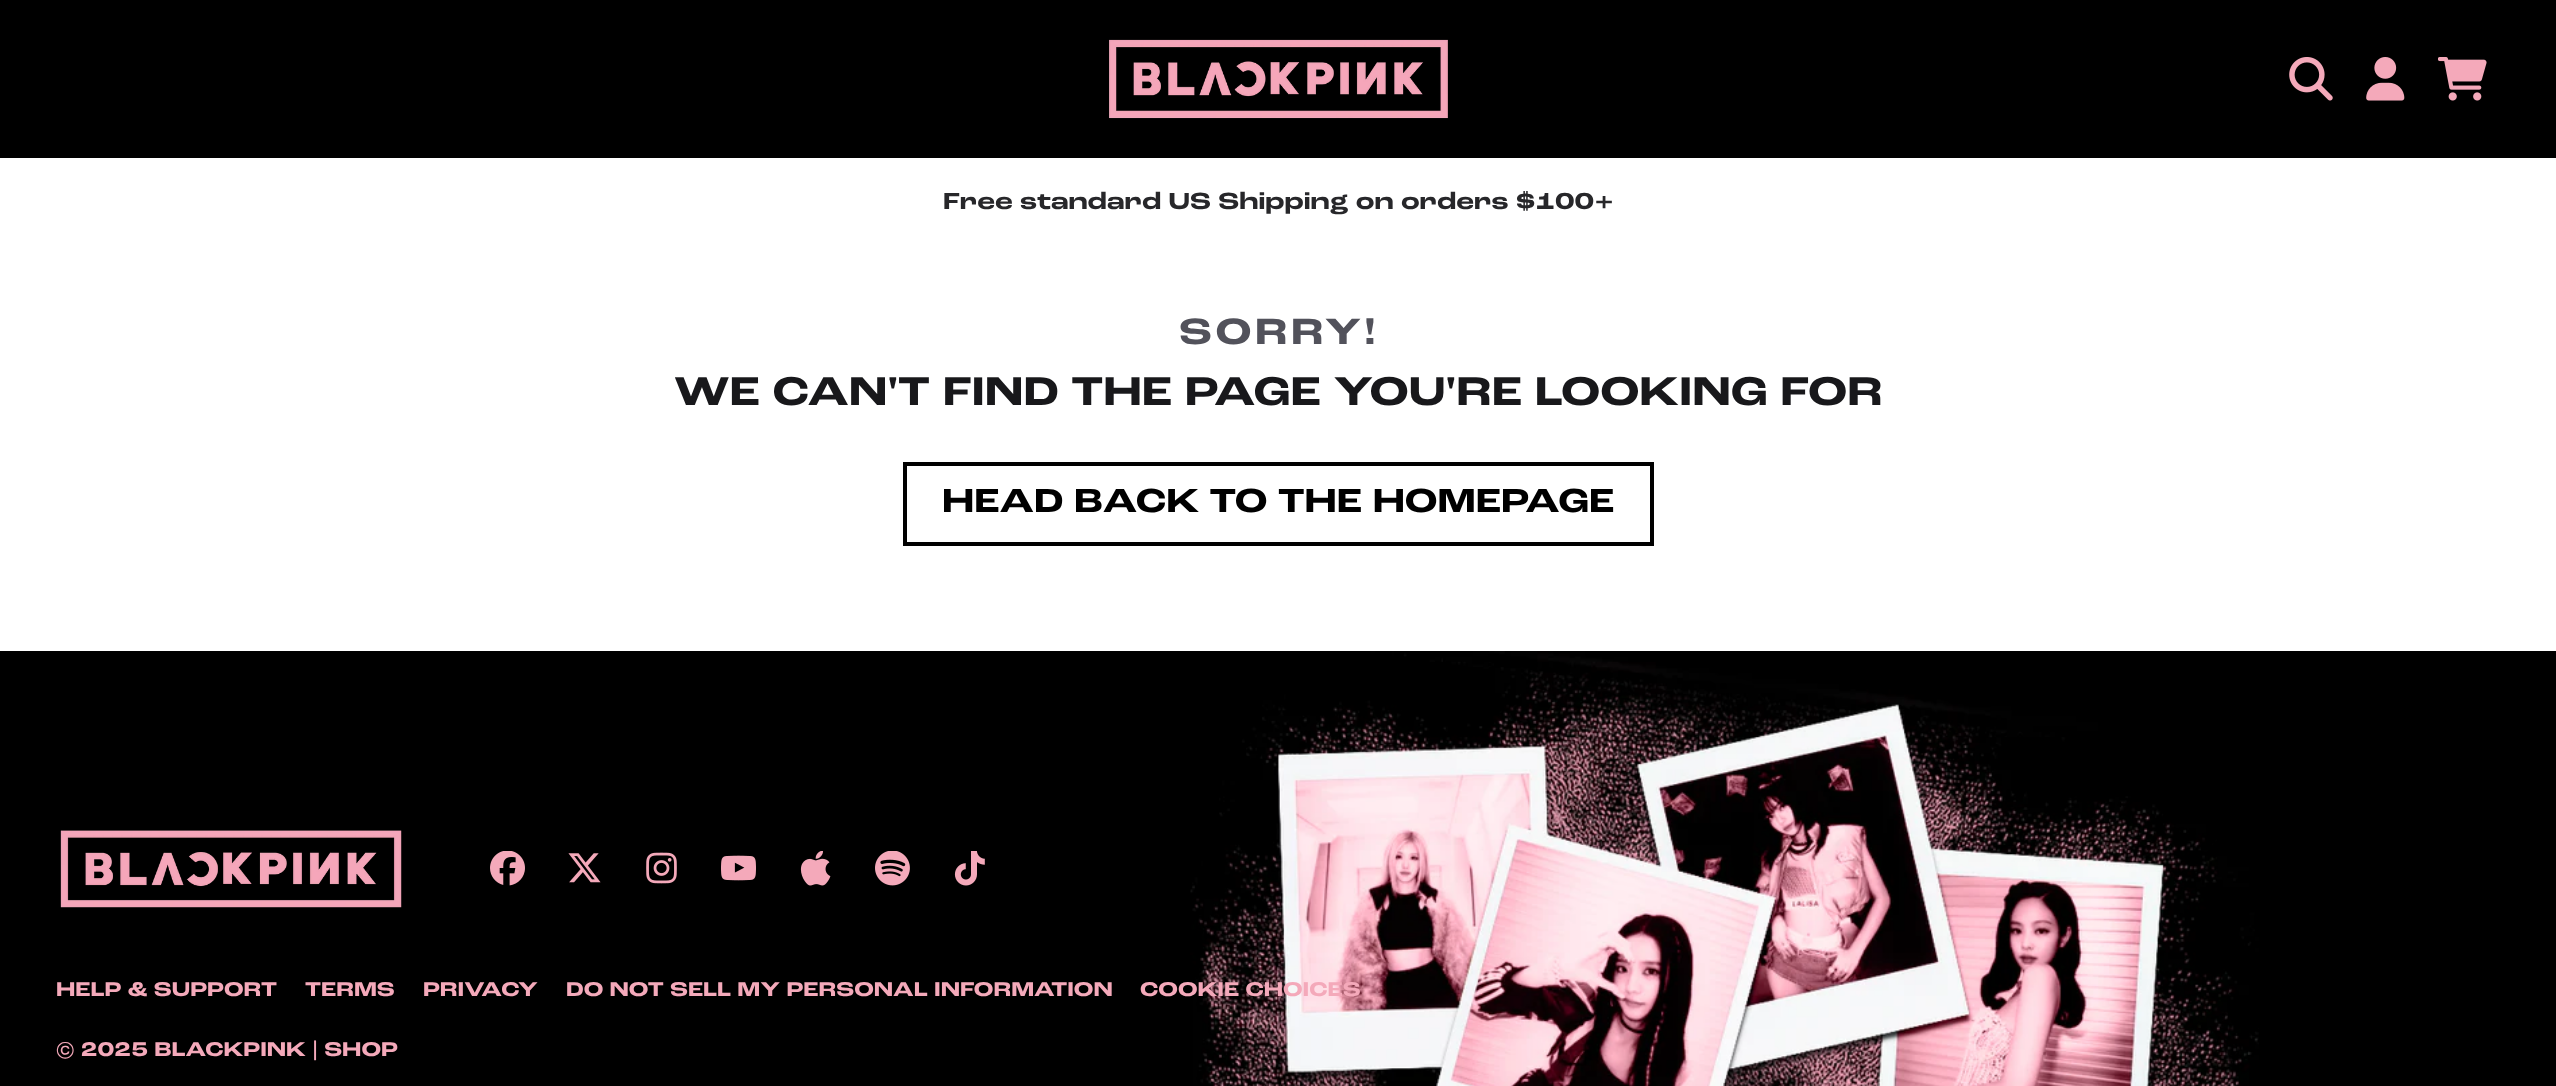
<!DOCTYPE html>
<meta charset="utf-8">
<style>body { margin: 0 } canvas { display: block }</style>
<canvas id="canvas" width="2556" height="1086"></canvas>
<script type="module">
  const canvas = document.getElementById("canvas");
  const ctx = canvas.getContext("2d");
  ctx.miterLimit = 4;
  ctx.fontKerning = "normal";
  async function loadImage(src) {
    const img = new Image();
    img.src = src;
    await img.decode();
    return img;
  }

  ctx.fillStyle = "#ffffff";
  ctx.fillRect(0, 0, 2556, 1086);
  ctx.fillStyle = "#000000";
  ctx.fillRect(0, 0, 2556, 158);
  ctx.drawImage(await loadImage("img1.png"), 1109, 39, 339, 80);
  ctx.drawImage(await loadImage("img2.png"), 2289, 57, 44, 44);
  ctx.drawImage(await loadImage("img3.png"), 2366, 57, 39, 44);
  ctx.drawImage(await loadImage("img4.png"), 2438, 57, 49, 44);
  ctx.font = "bold 24.5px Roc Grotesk";
  ctx.fillStyle = "#27272a";
  ctx.fillText("Free standard US Shipping on orders $100+", 943, 209);
  ctx.letterSpacing = "3.5px";
  ctx.font = "bold 38.5px Roc Grotesk";
  ctx.fillStyle = "#52525b";
  ctx.fillText("SORRY!", 1179, 344);
  ctx.letterSpacing = "0px";
  ctx.font = "bold 42px Roc Grotesk";
  ctx.fillStyle = "#18181b";
  ctx.fillText("WE CAN'T FIND THE PAGE YOU'RE LOOKING FOR", 674, 405);
  ctx.strokeStyle = "#000000";
  ctx.lineWidth = 4;
  ctx.strokeRect(905, 464, 747, 80);
  ctx.font = "bold 35px Roc Grotesk";
  ctx.fillStyle = "#000000";
  ctx.fillText("HEAD BACK TO THE HOMEPAGE", 942, 512);
  ctx.fillRect(0, 651, 2556, 435);
  ctx.drawImage(await loadImage("img5.png"), 60, 830, 342, 78);
  ctx.drawImage(await loadImage("img6.png"), 490, 851, 35, 35);
  ctx.drawImage(await loadImage("img7.png"), 568, 853, 33, 30);
  ctx.drawImage(await loadImage("img8.png"), 646, 852, 31, 32);
  ctx.drawImage(await loadImage("img9.png"), 721, 855, 35, 26);
  ctx.drawImage(await loadImage("img10.png"), 800, 851, 31, 35);
  ctx.drawImage(await loadImage("img11.png"), 875, 851, 35, 35);
  ctx.drawImage(await loadImage("img12.png"), 954, 851, 31, 35);
  ctx.font = "bold 21px Roc Grotesk";
  ctx.fillStyle = "#f4a9ba";
  ctx.fillText("HELP & SUPPORT", 56, 996);
  ctx.fillText("TERMS", 305, 996);
  ctx.fillText("PRIVACY", 423, 996);
  ctx.fillText("DO NOT SELL MY PERSONAL INFORMATION", 566, 996);
  ctx.drawImage(await loadImage("img13.png"), 1190, 651, 1069, 435);
  ctx.fillText("COOKIE CHOICES", 1140, 996);
  ctx.fillText("© 2025 BLACKPINK | SHOP", 56, 1056);
</script>
